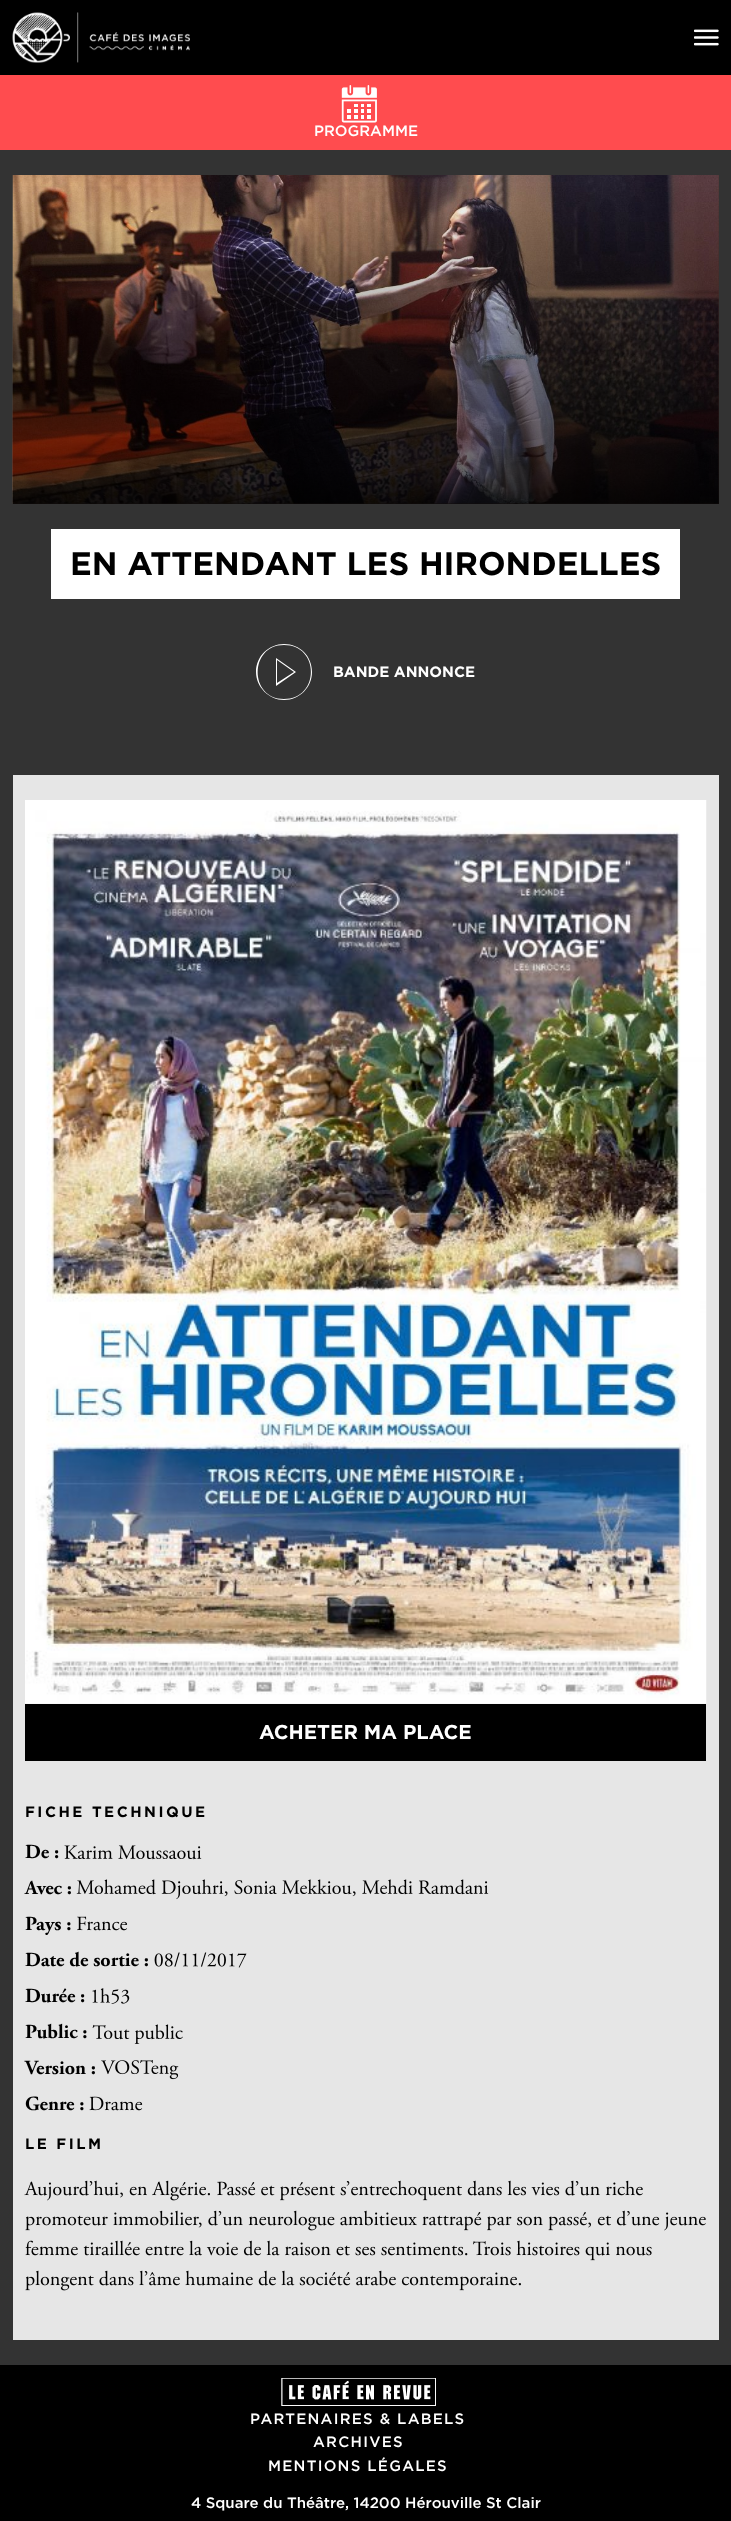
<!DOCTYPE html>
<meta charset="utf-8">
<style>body { margin: 0 } canvas { display: block }</style>
<canvas id="canvas" width="731" height="2521"></canvas>
<script type="module">
  const canvas = document.getElementById("canvas");
  const ctx = canvas.getContext("2d");
  ctx.miterLimit = 4;
  ctx.fontKerning = "normal";
  async function loadImage(src) {
    const img = new Image();
    img.src = src;
    await img.decode();
    return img;
  }
  let gradient;

  ctx.fillStyle = "#333333";
  ctx.fillRect(0, 0, 731, 2521);
  ctx.fillStyle = "#000000";
  ctx.fillRect(0, 0, 731, 75);
  ctx.drawImage(await loadImage("img1.png"), 12, 12, 178, 51);
  ctx.drawImage(await loadImage("img2.png"), 694, 29, 25, 17);
  ctx.fillStyle = "#ff4c4f";
  ctx.fillRect(0, 75, 731, 75);
  ctx.drawImage(await loadImage("img3.png"), 341, 85, 36, 38);
  ctx.font = "500 15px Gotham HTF";
  ctx.fillStyle = "#ffffff";
  ctx.fillText("PROGRAMME", 314, 136);
  ctx.fillStyle = "#4f3834";
  ctx.fillRect(13, 175, 706, 329);
  ctx.drawImage(await loadImage("img4.png"), 12, 175, 707, 329);
  gradient = ctx.createLinearGradient(366, 175, 366, 504);
  gradient.addColorStop(0, "rgba(0, 0, 0, 0)");
  gradient.addColorStop(0.9, "rgba(0, 0, 0, 0.6)");
  gradient.addColorStop(1, "rgba(0, 0, 0, 0.8)");
  ctx.fillStyle = gradient;
  ctx.fillRect(13, 186, 706, 318);
  ctx.fillStyle = "#ffffff";
  ctx.fillRect(51, 529, 629, 70);
  ctx.font = "bold 32.5px Gotham HTF";
  ctx.fillStyle = "#000000";
  ctx.fillText("EN ATTENDANT LES HIRONDELLES", 70, 575);
  ctx.fillStyle = "#ffffff";
  ctx.beginPath();
  ctx.moveTo(284, 644);
  ctx.bezierCurveTo(269, 644, 256, 656, 256, 672);
  ctx.bezierCurveTo(256, 687, 269, 700, 284, 700);
  ctx.bezierCurveTo(300, 700, 312, 687, 312, 672);
  ctx.bezierCurveTo(312, 656, 300, 644, 284, 644);
  ctx.closePath();
  ctx.moveTo(284, 699);
  ctx.bezierCurveTo(249, 699, 249, 645, 284, 645);
  ctx.bezierCurveTo(320, 645, 320, 699, 284, 699);
  ctx.closePath();
  ctx.moveTo(276, 686);
  ctx.lineTo(296, 672);
  ctx.lineTo(276, 658);
  ctx.closePath();
  ctx.moveTo(277, 660);
  ctx.lineTo(294, 672);
  ctx.lineTo(277, 683);
  ctx.closePath();
  ctx.fill();
  ctx.font = "bold 15px Gotham HTF";
  ctx.fillText("BANDE ANNONCE", 333, 677);
  ctx.fillStyle = "#e6e6e6";
  ctx.fillRect(13, 775, 706, 1565);
  ctx.drawImage(await loadImage("img5.png"), 25, 800, 682, 904);
  ctx.fillStyle = "#000000";
  ctx.fillRect(25, 1704, 681, 57);
  ctx.font = "bold 20px Gotham HTF";
  ctx.fillStyle = "#ffffff";
  ctx.fillText("ACHETER MA PLACE", 259, 1739);
  ctx.letterSpacing = "2.5px";
  ctx.font = "bold 15px Gotham HTF";
  ctx.fillStyle = "#000000";
  ctx.fillText("FICHE TECHNIQUE", 25, 1817);
  ctx.letterSpacing = "0px";
  ctx.font = "bold 20px Adobe Garamond";
  ctx.fillText("De :", 25, 1858);
  ctx.drawImage(await loadImage("img6.png"), 64, 1845, 138, 15);
  ctx.fillText("Avec :", 25, 1894);
  ctx.drawImage(await loadImage("img7.png"), 76, 1879, 413, 21);
  ctx.fillText("Pays :", 25, 1930);
  ctx.drawImage(await loadImage("img8.png"), 77, 1916, 51, 15);
  ctx.fillText("Date de sortie :", 25, 1966);
  ctx.drawImage(await loadImage("img9.png"), 154, 1952, 93, 16);
  ctx.fillText("Durée :", 25, 2002);
  ctx.drawImage(await loadImage("img10.png"), 92, 1988, 38, 16);
  ctx.fillText("Public :", 25, 2038);
  ctx.drawImage(await loadImage("img11.png"), 92, 2024, 91, 20);
  ctx.fillText("Version :", 25, 2074);
  ctx.drawImage(await loadImage("img12.png"), 101, 2060, 78, 20);
  ctx.fillText("Genre :", 25, 2110);
  ctx.drawImage(await loadImage("img13.png"), 89, 2096, 54, 15);
  ctx.letterSpacing = "2.5px";
  ctx.font = "bold 15px Gotham HTF";
  ctx.fillText("LE FILM", 25, 2149);
  ctx.drawImage(await loadImage("img14.png"), 24, 2180, 619, 21);
  ctx.drawImage(await loadImage("img15.png"), 25, 2210, 681, 21);
  ctx.drawImage(await loadImage("img16.png"), 25, 2240, 627, 21);
  ctx.drawImage(await loadImage("img17.png"), 25, 2270, 496, 21);
  ctx.fillRect(0, 2365, 731, 156);
  ctx.drawImage(await loadImage("img18.png"), 281, 2378, 155, 28);
  ctx.letterSpacing = "1.25px";
  ctx.font = "500 15px Gotham HTF";
  ctx.fillStyle = "#ffffff";
  ctx.fillText("PARTENAIRES & LABELS", 250, 2424);
  ctx.fillText("ARCHIVES", 313, 2447);
  ctx.fillText("MENTIONS LÉGALES", 268, 2471);
  ctx.letterSpacing = "0px";
  ctx.fillText("4 Square du Théâtre, 14200 Hérouville St Clair", 191, 2508);
</script>
